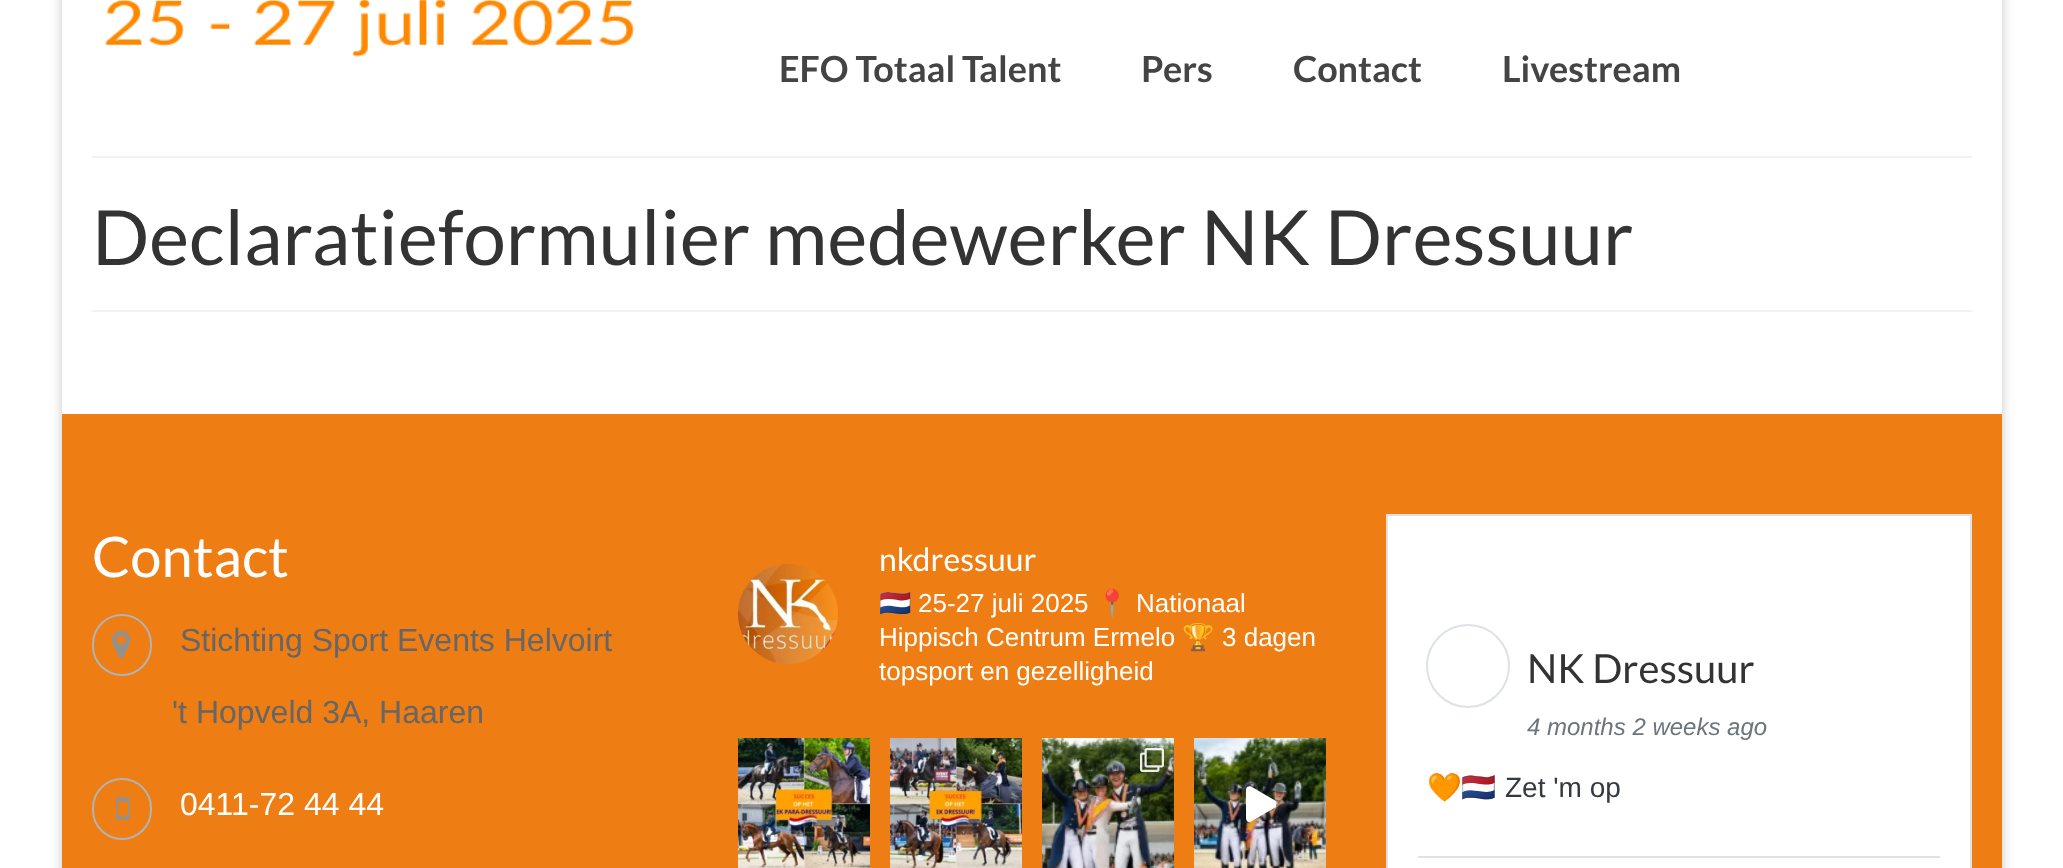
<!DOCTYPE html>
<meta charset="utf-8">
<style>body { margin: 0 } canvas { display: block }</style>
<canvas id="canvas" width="2063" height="868"></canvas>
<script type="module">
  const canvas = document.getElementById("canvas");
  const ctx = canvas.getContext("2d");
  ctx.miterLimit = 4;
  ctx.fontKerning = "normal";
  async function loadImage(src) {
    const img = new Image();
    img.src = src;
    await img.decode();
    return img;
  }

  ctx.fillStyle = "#ffffff";
  ctx.fillRect(0, 0, 2063, 868);
  ctx.save();
  ctx.beginPath();
  ctx.moveTo(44, 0);
  ctx.lineTo(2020, 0);
  ctx.lineTo(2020, 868);
  ctx.lineTo(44, 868);
  ctx.closePath();
  ctx.moveTo(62, -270);
  ctx.lineTo(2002, -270);
  ctx.lineTo(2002, 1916);
  ctx.lineTo(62, 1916);
  ctx.closePath();
  ctx.clip("evenodd");
  ctx.fillStyle = "rgba(0, 0, 0, 0.16)";
  ctx.filter = "blur(5px)";
  ctx.beginPath();
  ctx.rect(60, -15, 1944, 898);
  ctx.fill();
  ctx.filter = "none";
  ctx.restore();
  ctx.drawImage(await loadImage("img1.png"), 105, 0, 530, 57);
  ctx.font = "bold 36px Lato";
  ctx.fillStyle = "#444444";
  ctx.fillText("EFO Totaal Talent", 779, 82);
  ctx.fillText("Pers", 1141, 82);
  ctx.fillText("Contact", 1293, 82);
  ctx.fillText("Livestream", 1502, 82);
  ctx.fillStyle = "#f2f2f2";
  ctx.fillRect(92, 156, 1880, 2);
  ctx.fillRect(92, 310, 1880, 2);
  ctx.font = "76px Lato";
  ctx.fillStyle = "#333333";
  ctx.fillText("Declaratieformulier medewerker NK Dressuur", 92, 265);
  ctx.fillStyle = "#ee7d14";
  ctx.fillRect(62, 414, 1940, 454);
  ctx.font = "56px Lato";
  ctx.fillStyle = "#ffffff";
  ctx.fillText("Contact", 92, 577);
  ctx.beginPath();
  ctx.roundRect(93, 615, 58, 60, 29);
  ctx.strokeStyle = "#b3b3b3";
  ctx.lineWidth = 2;
  ctx.stroke();
  ctx.drawImage(await loadImage("img2.png"), 112, 630, 19, 29);
  ctx.font = "32px Liberation Sans";
  ctx.fillStyle = "#666666";
  ctx.fillText("Stichting Sport Events Helvoirt", 180, 651);
  ctx.fillText("'t Hopveld 3A, Haaren", 172, 723);
  ctx.beginPath();
  ctx.roundRect(93, 779, 58, 60, 29);
  ctx.stroke();
  ctx.drawImage(await loadImage("img3.png"), 116, 797, 14, 23);
  ctx.fillStyle = "#ffffff";
  ctx.fillText("0411-72 44 44", 180, 815);
  ctx.drawImage(await loadImage("img4.png"), 738, 564, 100, 100);
  ctx.font = "32px Lato";
  ctx.fillText("nkdressuur", 879, 571);
  ctx.font = "26px Noto Color Emoji";
  ctx.fillText("🇳🇱", 879, 612);
  ctx.font = "26px Liberation Sans";
  ctx.fillText("25-27 juli 2025", 918, 612);
  ctx.font = "26px Noto Color Emoji";
  ctx.fillText("📍", 1096, 612);
  ctx.font = "26px Liberation Sans";
  ctx.fillText("Nationaal", 1136, 612);
  ctx.fillText("Hippisch Centrum Ermelo", 879, 646);
  ctx.font = "26px Noto Color Emoji";
  ctx.fillText("🏆", 1182, 646);
  ctx.font = "26px Liberation Sans";
  ctx.fillText("3 dagen", 1222, 646);
  ctx.fillText("topsport en gezelligheid", 879, 680);
  ctx.drawImage(await loadImage("img5.png"), 738, 738, 132, 130);
  ctx.drawImage(await loadImage("img6.png"), 890, 738, 132, 130);
  ctx.drawImage(await loadImage("img7.png"), 1042, 738, 132, 130);
  ctx.drawImage(await loadImage("img8.png"), 1140, 748, 24, 24);
  ctx.drawImage(await loadImage("img9.png"), 1194, 738, 132, 130);
  ctx.save();
  ctx.beginPath();
  ctx.rect(1246, 786, 30, 36);
  ctx.clip();
  ctx.beginPath();
  ctx.moveTo(1276, 801);
  ctx.lineTo(1251, 786.5);
  ctx.bezierCurveTo(1249, 785.5, 1246, 786.5, 1246, 789.5);
  ctx.lineTo(1246, 818.5);
  ctx.bezierCurveTo(1246, 821.5, 1249, 823, 1251, 821.5);
  ctx.lineTo(1276, 807);
  ctx.bezierCurveTo(1278, 805.5, 1278, 802.5, 1276, 801);
  ctx.closePath();
  ctx.fill();
  ctx.restore();
  ctx.beginPath();
  ctx.rect(1387, 515, 584, 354);
  ctx.fill();
  ctx.strokeStyle = "#dee2e6";
  ctx.stroke();
  ctx.beginPath();
  ctx.arc(1468, 666, 41, 0, Math.PI * 2);
  ctx.stroke();
  ctx.font = "40px Lato";
  ctx.fillStyle = "#333333";
  ctx.fillText("NK Dressuur", 1527, 683);
  ctx.font = "italic 24px Liberation Sans";
  ctx.fillStyle = "#6c757d";
  ctx.fillText("4 months 2 weeks ago", 1527, 735);
  ctx.font = "28px Noto Color Emoji";
  ctx.fillStyle = "#343a40";
  ctx.fillText("🧡🇳🇱", 1427, 797);
  ctx.font = "28px Liberation Sans";
  ctx.fillText("Zet 'm op", 1505, 797);
  ctx.fillStyle = "#dee2e6";
  ctx.fillRect(1418, 856, 522, 2);
</script>
